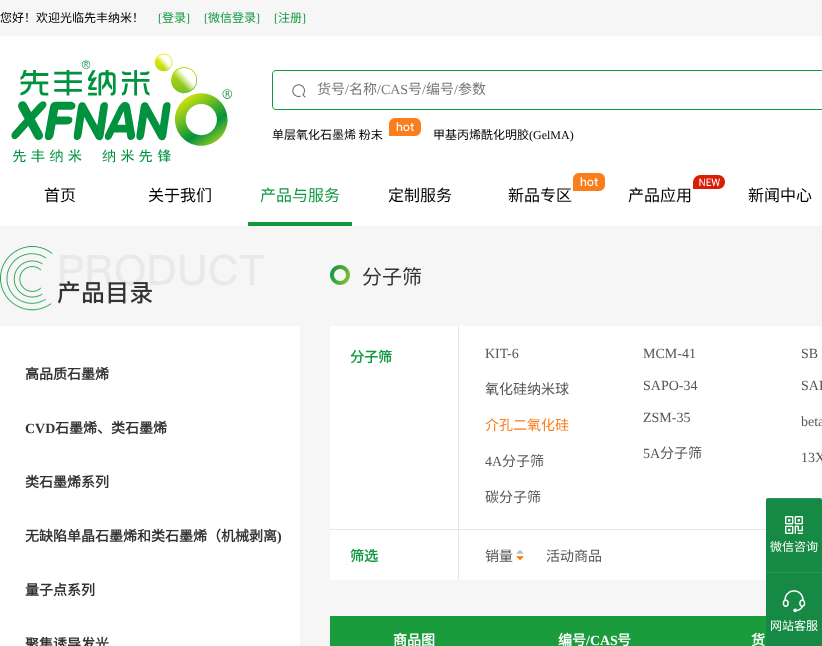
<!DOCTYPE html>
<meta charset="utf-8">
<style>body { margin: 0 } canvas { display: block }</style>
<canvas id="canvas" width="822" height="646"></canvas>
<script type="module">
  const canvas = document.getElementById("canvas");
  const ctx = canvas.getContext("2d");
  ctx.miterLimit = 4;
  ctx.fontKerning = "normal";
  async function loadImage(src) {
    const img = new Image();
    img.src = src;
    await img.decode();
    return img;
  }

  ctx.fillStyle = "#f6f6f6";
  ctx.fillRect(0, 0, 822, 646);
  ctx.font = "12px Noto Sans CJK SC";
  ctx.fillStyle = "#000000";
  ctx.fillText("您好！欢迎光临先丰纳米！", 0, 22);
  ctx.font = "12px Liberation Serif";
  ctx.fillStyle = "#109941";
  ctx.fillText("[", 158, 22);
  ctx.font = "12px Noto Sans CJK SC";
  ctx.fillText("登录", 162, 22);
  ctx.font = "12px Liberation Serif";
  ctx.fillText("]", 186, 22);
  ctx.fillText("[", 204, 22);
  ctx.font = "12px Noto Sans CJK SC";
  ctx.fillText("微信登录", 208, 22);
  ctx.font = "12px Liberation Serif";
  ctx.fillText("]", 256, 22);
  ctx.fillText("[", 274, 22);
  ctx.font = "12px Noto Sans CJK SC";
  ctx.fillText("注册", 278, 22);
  ctx.font = "12px Liberation Serif";
  ctx.fillText("]", 302, 22);
  ctx.fillStyle = "#ffffff";
  ctx.fillRect(0, 36, 822, 190);
  ctx.drawImage(await loadImage("img1.png"), 11, 53, 222, 110);
  ctx.fillStyle = "#109941";
  ctx.beginPath();
  ctx.moveTo(276, 70);
  ctx.lineTo(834, 70);
  ctx.bezierCurveTo(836, 70, 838, 72, 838, 74);
  ctx.lineTo(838, 106);
  ctx.bezierCurveTo(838, 108, 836, 110, 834, 110);
  ctx.lineTo(276, 110);
  ctx.bezierCurveTo(274, 110, 272, 108, 272, 106);
  ctx.lineTo(272, 74);
  ctx.bezierCurveTo(272, 72, 274, 70, 276, 70);
  ctx.closePath();
  ctx.moveTo(276, 71);
  ctx.lineTo(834, 71);
  ctx.bezierCurveTo(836, 71, 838, 72, 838, 74);
  ctx.lineTo(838, 106);
  ctx.bezierCurveTo(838, 108, 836, 109, 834, 109);
  ctx.lineTo(276, 109);
  ctx.bezierCurveTo(274, 109, 273, 108, 273, 106);
  ctx.lineTo(273, 74);
  ctx.bezierCurveTo(273, 72, 274, 71, 276, 71);
  ctx.closePath();
  ctx.fill("evenodd");
  ctx.drawImage(await loadImage("img2.png"), 292, 84, 14, 14);
  ctx.font = "14px Noto Sans CJK SC";
  ctx.fillStyle = "#757575";
  ctx.fillText("货号", 317, 94);
  ctx.font = "14px Liberation Serif";
  ctx.fillText("/", 345, 94);
  ctx.font = "14px Noto Sans CJK SC";
  ctx.fillText("名称", 349, 94);
  ctx.font = "14px Liberation Serif";
  ctx.fillText("/CAS", 377, 94);
  ctx.font = "14px Noto Sans CJK SC";
  ctx.fillText("号", 408, 94);
  ctx.font = "14px Liberation Serif";
  ctx.fillText("/", 422, 94);
  ctx.font = "14px Noto Sans CJK SC";
  ctx.fillText("编号", 426, 94);
  ctx.font = "14px Liberation Serif";
  ctx.fillText("/", 454, 94);
  ctx.font = "14px Noto Sans CJK SC";
  ctx.fillText("参数", 458, 94);
  ctx.font = "12px Noto Sans CJK SC";
  ctx.fillStyle = "#000000";
  ctx.fillText("单层氧化石墨烯 粉末", 272, 139);
  ctx.drawImage(await loadImage("img3.png"), 389, 118, 32, 18);
  ctx.fillText("甲基丙烯酰化明胶", 433, 139);
  ctx.font = "12px Liberation Serif";
  ctx.fillText("(GelMA)", 529, 139);
  ctx.font = "16px Noto Sans CJK SC";
  ctx.fillText("首页", 44, 201);
  ctx.fillText("关于我们", 148, 201);
  ctx.fillStyle = "#109941";
  ctx.fillRect(248, 222, 104, 4);
  ctx.fillText("产品与服务", 260, 201);
  ctx.fillStyle = "#000000";
  ctx.fillText("定制服务", 388, 201);
  ctx.drawImage(await loadImage("img3.png"), 573, 173, 32, 18);
  ctx.fillText("新品专区", 508, 201);
  ctx.drawImage(await loadImage("img4.png"), 693, 175, 32, 14);
  ctx.fillText("产品应用", 628, 201);
  ctx.fillText("新闻中心", 748, 201);
  ctx.drawImage(await loadImage("img5.png"), 0, 246, 264, 65);
  ctx.drawImage(await loadImage("img6.png"), 330, 265, 20, 20);
  ctx.font = "20px Noto Sans CJK SC";
  ctx.fillStyle = "#333333";
  ctx.fillText("分子筛", 362, 284);
  ctx.fillStyle = "#ffffff";
  ctx.fillRect(0, 326, 300, 320);
  ctx.font = "bold 14px Noto Sans CJK SC";
  ctx.fillStyle = "#333333";
  ctx.fillText("高品质石墨烯", 25, 379);
  ctx.font = "bold 14px Liberation Serif";
  ctx.fillText("CVD", 25, 433);
  ctx.font = "bold 14px Noto Sans CJK SC";
  ctx.fillText("石墨烯、类石墨烯", 55, 433);
  ctx.fillText("类石墨烯系列", 25, 487);
  ctx.fillText("无缺陷单晶石墨烯和类石墨烯（机械剥离", 25, 541);
  ctx.font = "bold 14px Liberation Serif";
  ctx.fillText(")", 277, 541);
  ctx.font = "bold 14px Noto Sans CJK SC";
  ctx.fillText("量子点系列", 25, 595);
  ctx.fillText("聚集诱导发光", 25, 649);
  ctx.fillStyle = "#ffffff";
  ctx.fillRect(330, 326, 492, 254);
  ctx.fillStyle = "#109941";
  ctx.fillText("分子筛", 350, 362);
  ctx.font = "14px Liberation Serif";
  ctx.fillStyle = "#565656";
  ctx.fillText("KIT-6", 485, 358);
  ctx.font = "14px Noto Sans CJK SC";
  ctx.fillText("氧化硅纳米球", 485, 394);
  ctx.fillStyle = "#fa7e1e";
  ctx.fillText("介孔二氧化硅", 485, 430);
  ctx.font = "14px Liberation Serif";
  ctx.fillStyle = "#565656";
  ctx.fillText("4A", 485, 466);
  ctx.font = "14px Noto Sans CJK SC";
  ctx.fillText("分子筛", 502, 466);
  ctx.fillText("碳分子筛", 485, 502);
  ctx.font = "14px Liberation Serif";
  ctx.fillText("MCM-41", 643, 358);
  ctx.fillText("SAPO-34", 643, 390);
  ctx.fillText("ZSM-35", 643, 422);
  ctx.fillText("5A", 643, 458);
  ctx.font = "14px Noto Sans CJK SC";
  ctx.fillText("分子筛", 660, 458);
  ctx.font = "14px Liberation Serif";
  ctx.fillText("SB", 801, 358);
  ctx.fillText("SAP", 801, 390);
  ctx.fillText("beta", 801, 426);
  ctx.fillText("13X", 801, 462);
  ctx.fillStyle = "#e7e7e7";
  ctx.fillRect(330, 529, 436, 1);
  ctx.font = "bold 14px Noto Sans CJK SC";
  ctx.fillStyle = "#109941";
  ctx.fillText("筛选", 350, 561);
  ctx.fillStyle = "#e7e7e7";
  ctx.fillRect(458, 326, 1, 254);
  ctx.font = "14px Noto Sans CJK SC";
  ctx.fillStyle = "#565656";
  ctx.fillText("销量", 485, 561);
  ctx.drawImage(await loadImage("img7.png"), 516, 550, 8, 10);
  ctx.fillText("活动商品", 546, 561);
  ctx.fillStyle = "#1a9b3c";
  ctx.fillRect(330, 616, 492, 30);
  ctx.font = "bold 14px Noto Sans CJK SC";
  ctx.fillStyle = "#ffffff";
  ctx.fillText("商品图", 393, 645);
  ctx.fillText("编号", 558, 645);
  ctx.font = "bold 14px Liberation Serif";
  ctx.fillText("/CAS", 586, 645);
  ctx.font = "bold 14px Noto Sans CJK SC";
  ctx.fillText("号", 617, 645);
  ctx.fillText("货", 751, 645);
  ctx.fillStyle = "#168944";
  ctx.beginPath();
  ctx.roundRect(766, 498, 56, 148, 2);
  ctx.fill();
  ctx.fillStyle = "rgba(255, 255, 255, 0.1)";
  ctx.fillRect(766, 498, 56, 1);
  ctx.drawImage(await loadImage("img8.png"), 785, 516, 18, 18);
  ctx.font = "12px Noto Sans CJK SC";
  ctx.fillStyle = "#ffffff";
  ctx.fillText("微信咨询", 770, 551);
  ctx.fillStyle = "#2d9557";
  ctx.fillRect(766, 572, 56, 1);
  ctx.drawImage(await loadImage("img9.png"), 782, 590, 24, 23);
  ctx.fillStyle = "#ffffff";
  ctx.fillText("网站客服", 770, 630);
</script>
